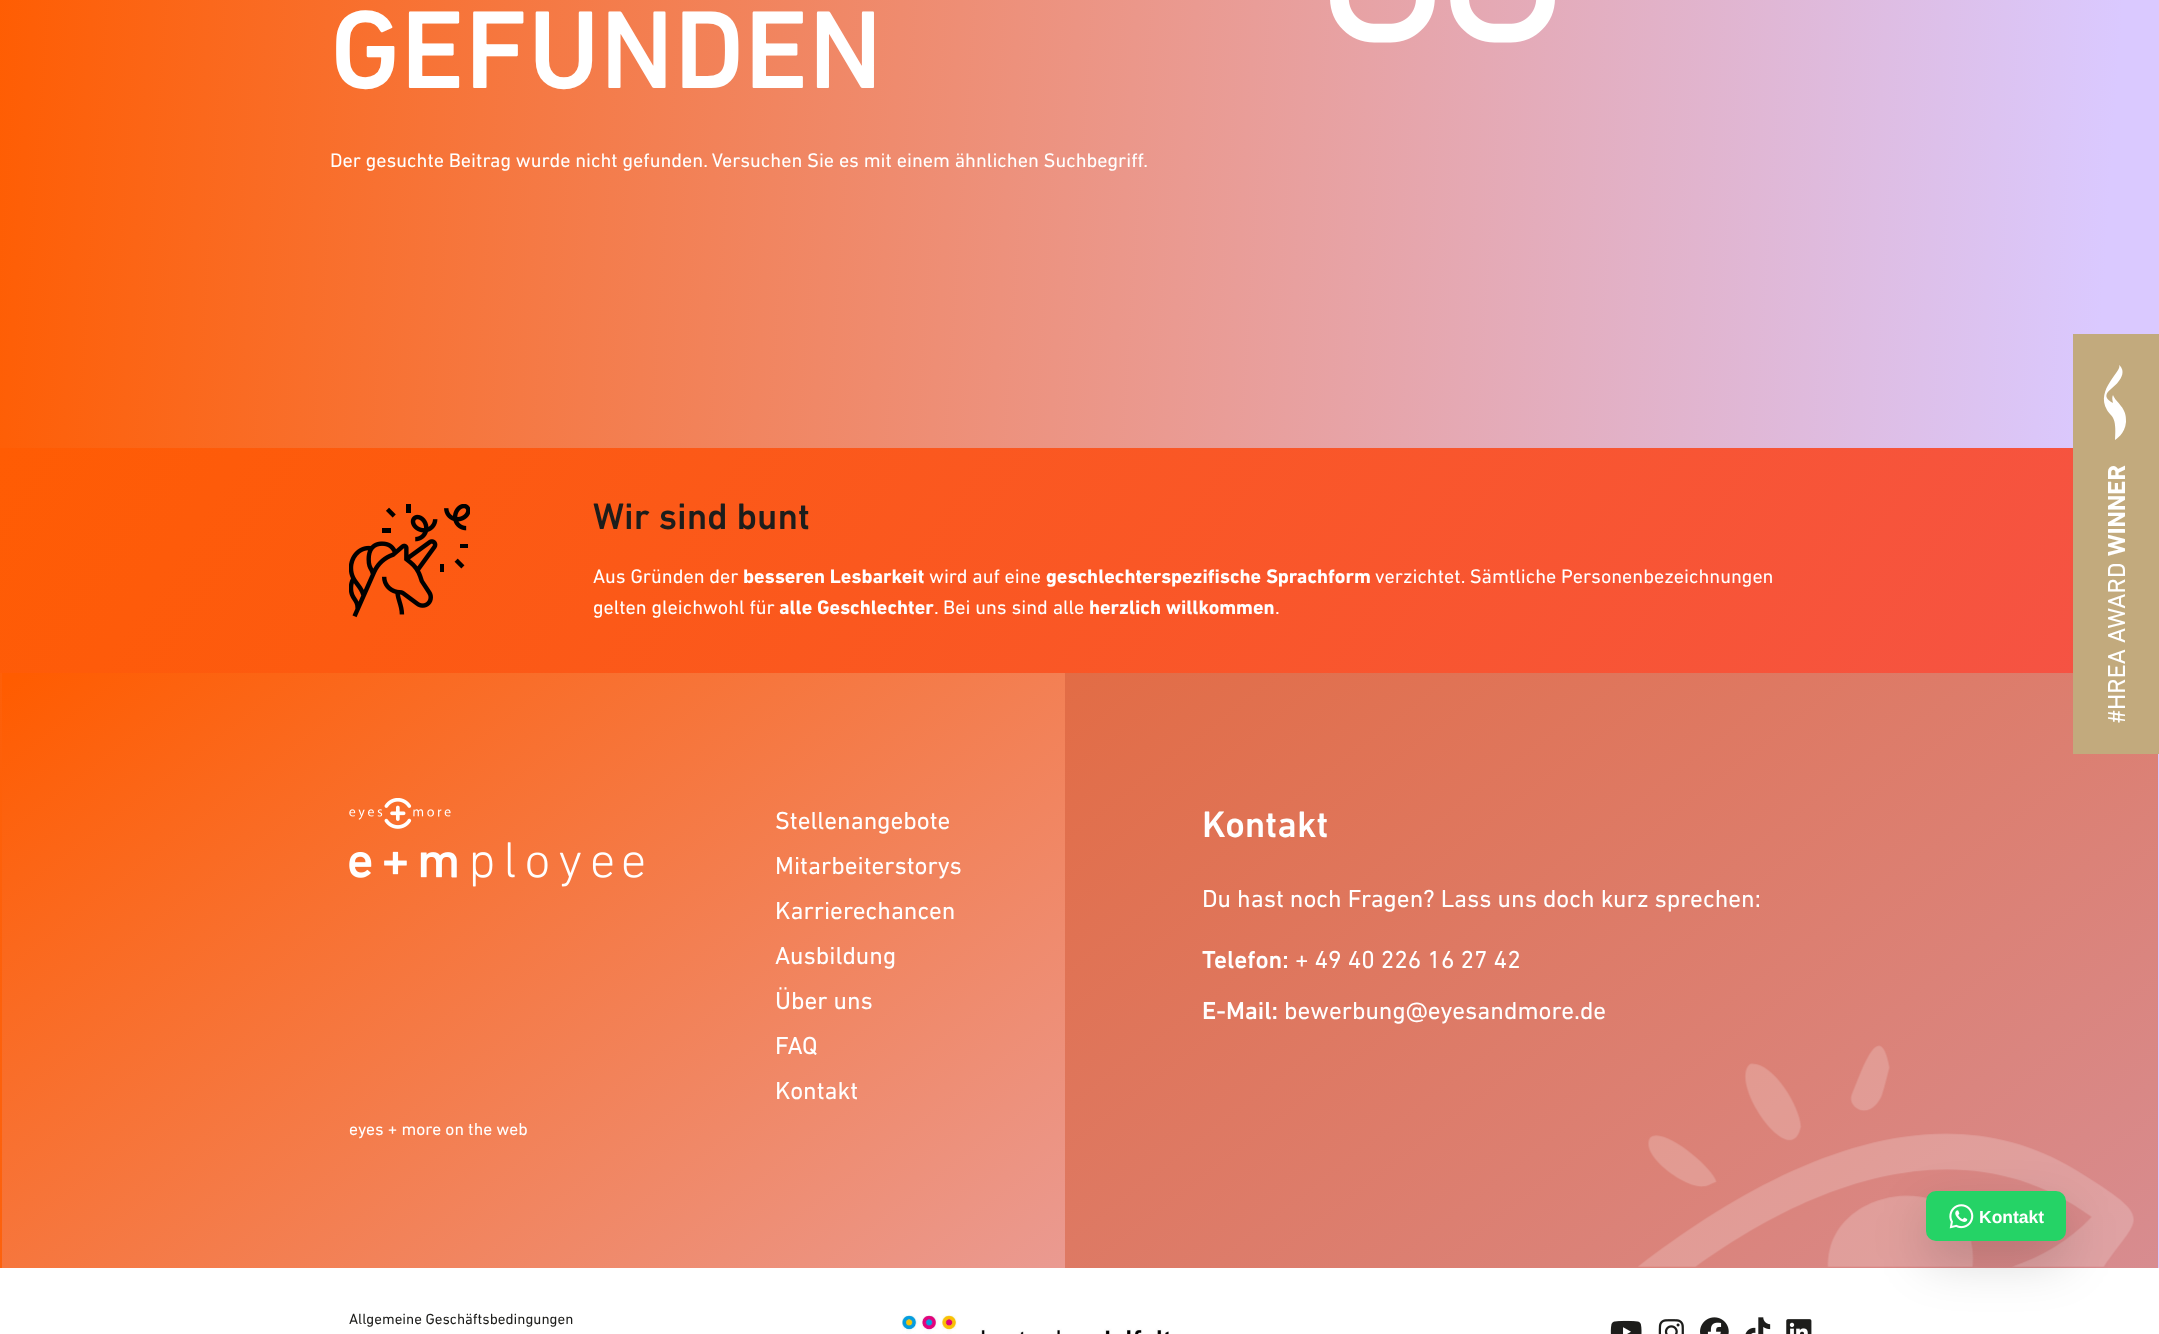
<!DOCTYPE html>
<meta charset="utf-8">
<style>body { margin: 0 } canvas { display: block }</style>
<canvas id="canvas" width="2159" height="1334"></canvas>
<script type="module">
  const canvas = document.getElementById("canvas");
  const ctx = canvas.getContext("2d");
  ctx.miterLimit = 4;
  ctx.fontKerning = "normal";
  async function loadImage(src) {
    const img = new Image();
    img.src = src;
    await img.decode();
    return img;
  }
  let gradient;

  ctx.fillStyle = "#ffffff";
  ctx.fillRect(0, 0, 2159, 1334);
  gradient = ctx.createLinearGradient(-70, 327, 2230, 480);
  gradient.addColorStop(0.01, "#ff5c00");
  gradient.addColorStop(0.94, "#dac9ff");
  ctx.fillStyle = gradient;
  ctx.fillRect(0, 0, 2159, 1268);
  ctx.font = "500 112.5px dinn";
  ctx.fillStyle = "#ffffff";
  ctx.fillText("GEFUNDEN", 330, 88);
  ctx.font = "20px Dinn";
  ctx.fillText("Der gesuchte Beitrag wurde nicht gefunden. Versuchen Sie es mit einem ähnlichen Suchbegriff.", 330, 167);
  ctx.drawImage(await loadImage("img1.png"), 1330, 0, 225, 43);
  gradient = ctx.createLinearGradient(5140, -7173, 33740, 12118);
  gradient.addColorStop(0, "#ff5c03");
  gradient.addColorStop(0.14, "#e644ab");
  gradient.addColorStop(0.29, "#9742e8");
  gradient.addColorStop(0.43, "#527ef9");
  gradient.addColorStop(0.57, "#28c9d3");
  gradient.addColorStop(0.71, "#78f760");
  gradient.addColorStop(0.86, "#efff00");
  gradient.addColorStop(1, "#ffac04");
  ctx.fillStyle = gradient;
  ctx.fillRect(0, 448, 2073, 225);
  ctx.drawImage(await loadImage("img2.png"), 349, 504, 121, 114);
  ctx.font = "500 37.5px dinn";
  ctx.fillStyle = "#1d1d1b";
  ctx.fillText("Wir sind bunt", 593, 529);
  ctx.font = "20px Dinn";
  ctx.fillStyle = "#ffffff";
  ctx.fillText("Aus Gründen der", 593, 583);
  ctx.font = "bold 20px DIN Next";
  ctx.fillText("besseren Lesbarkeit", 743, 583);
  ctx.font = "20px Dinn";
  ctx.fillText("wird auf eine", 929, 583);
  ctx.font = "bold 20px DIN Next";
  ctx.fillText("geschlechterspezifische Sprachform", 1046, 583);
  ctx.font = "20px Dinn";
  ctx.fillText("verzichtet. Sämtliche Personenbezeichnungen", 1375, 583);
  ctx.fillText("gelten gleichwohl für", 593, 614);
  ctx.font = "bold 20px DIN Next";
  ctx.fillText("alle Geschlechter", 779, 614);
  ctx.font = "20px Dinn";
  ctx.fillText(". Bei uns sind alle", 934, 614);
  ctx.font = "bold 20px DIN Next";
  ctx.fillText("herzlich willkommen", 1089, 614);
  ctx.font = "20px Dinn";
  ctx.fillText(".", 1275, 614);
  gradient = ctx.createLinearGradient(521, 285, 1710, 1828);
  gradient.addColorStop(0, "#ff5c00");
  gradient.addColorStop(1, "#dac9ff");
  ctx.fillStyle = gradient;
  ctx.fillRect(2, 673, 1063, 595);
  gradient = ctx.createLinearGradient(521, 285, 1710, 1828);
  gradient.addColorStop(0, "#e85a1b");
  gradient.addColorStop(1, "#d6919b");
  ctx.fillStyle = gradient;
  ctx.fillRect(1065, 673, 1093, 595);
  ctx.drawImage(await loadImage("img3.png"), 349, 798, 295, 89);
  ctx.font = "25px Dinn";
  ctx.fillStyle = "#ffffff";
  ctx.fillText("Stellenangebote", 775, 829);
  ctx.fillText("Mitarbeiterstorys", 775, 874);
  ctx.fillText("Karrierechancen", 775, 919);
  ctx.fillText("Ausbildung", 775, 964);
  ctx.fillText("Über uns", 775, 1009);
  ctx.fillText("FAQ", 775, 1054);
  ctx.fillText("Kontakt", 775, 1099);
  ctx.font = "500 37.5px dinn";
  ctx.fillText("Kontakt", 1202, 837);
  ctx.font = "25px Dinn";
  ctx.fillText("Du hast noch Fragen? Lass uns doch kurz sprechen:", 1202, 907);
  ctx.font = "500 25px dinn";
  ctx.fillText("Telefon:", 1202, 968);
  ctx.font = "25px Dinn";
  ctx.fillText("+ 49 40 226 16 27 42", 1295, 968);
  ctx.font = "500 25px dinn";
  ctx.fillText("E-Mail:", 1202, 1019);
  ctx.font = "25px Dinn";
  ctx.fillText("bewerbung@eyesandmore.de", 1284, 1019);
  ctx.font = "17.5px Dinn";
  ctx.fillText("eyes + more on the web", 349, 1135);
  ctx.drawImage(await loadImage("img4.png"), 1638, 1045, 496, 222);
  ctx.font = "15px Dinn";
  ctx.fillStyle = "#1d1d1b";
  ctx.fillText("Allgemeine Geschäftsbedingungen", 349, 1324);
  ctx.drawImage(await loadImage("img5.png"), 902, 1315, 267, 19);
  ctx.drawImage(await loadImage("img6.png"), 1610, 1320, 32, 14);
  ctx.drawImage(await loadImage("img7.png"), 1658, 1319, 26, 15);
  ctx.drawImage(await loadImage("img8.png"), 1700, 1317, 29, 17);
  ctx.drawImage(await loadImage("img9.png"), 1745, 1317, 26, 17);
  ctx.drawImage(await loadImage("img10.png"), 1786, 1319, 26, 15);
  ctx.fillStyle = "#c2aa7d";
  ctx.fillRect(2073, 334, 86, 420);
  ctx.fillStyle = "#ffffff";
  ctx.beginPath();
  ctx.moveTo(2115, 440);
  ctx.bezierCurveTo(2116, 439, 2125, 434, 2126, 422);
  ctx.bezierCurveTo(2127, 407, 2116, 403, 2113, 395);
  ctx.bezierCurveTo(2112, 397, 2112, 399, 2113, 403);
  ctx.bezierCurveTo(2110, 401, 2101, 397, 2111, 389);
  ctx.bezierCurveTo(2131, 373, 2119, 365, 2119, 365);
  ctx.bezierCurveTo(2123, 371, 2095, 389, 2107, 410);
  ctx.bezierCurveTo(2111, 417, 2117, 415, 2115, 440);
  ctx.closePath();
  ctx.fill();
  ctx.font = "bold 25px DIN Next";
  ctx.save();
  ctx.translate(2125, 556);
  ctx.rotate(-90 * Math.PI / 180);
  ctx.fillText("WINNER", 0, 0);
  ctx.restore();
  ctx.font = "25px Dinn";
  ctx.save();
  ctx.translate(2125, 723);
  ctx.rotate(-90 * Math.PI / 180);
  ctx.fillText("#HREA AWARD", 0, 0);
  ctx.restore();
  ctx.fillStyle = "rgba(0, 0, 0, 0.16)";
  ctx.filter = "blur(25px)";
  ctx.beginPath();
  ctx.roundRect(1926, 1211, 140, 50, 10);
  ctx.fill();
  ctx.filter = "none";
  ctx.fillStyle = "#25d366";
  ctx.beginPath();
  ctx.roundRect(1926, 1191, 140, 50, 10);
  ctx.fill();
  ctx.drawImage(await loadImage("img11.png"), 1949, 1204, 25, 25);
  ctx.font = "bold 17.5px Liberation Sans";
  ctx.fillStyle = "#ffffff";
  ctx.fillText("Kontakt", 1979, 1223);
</script>
